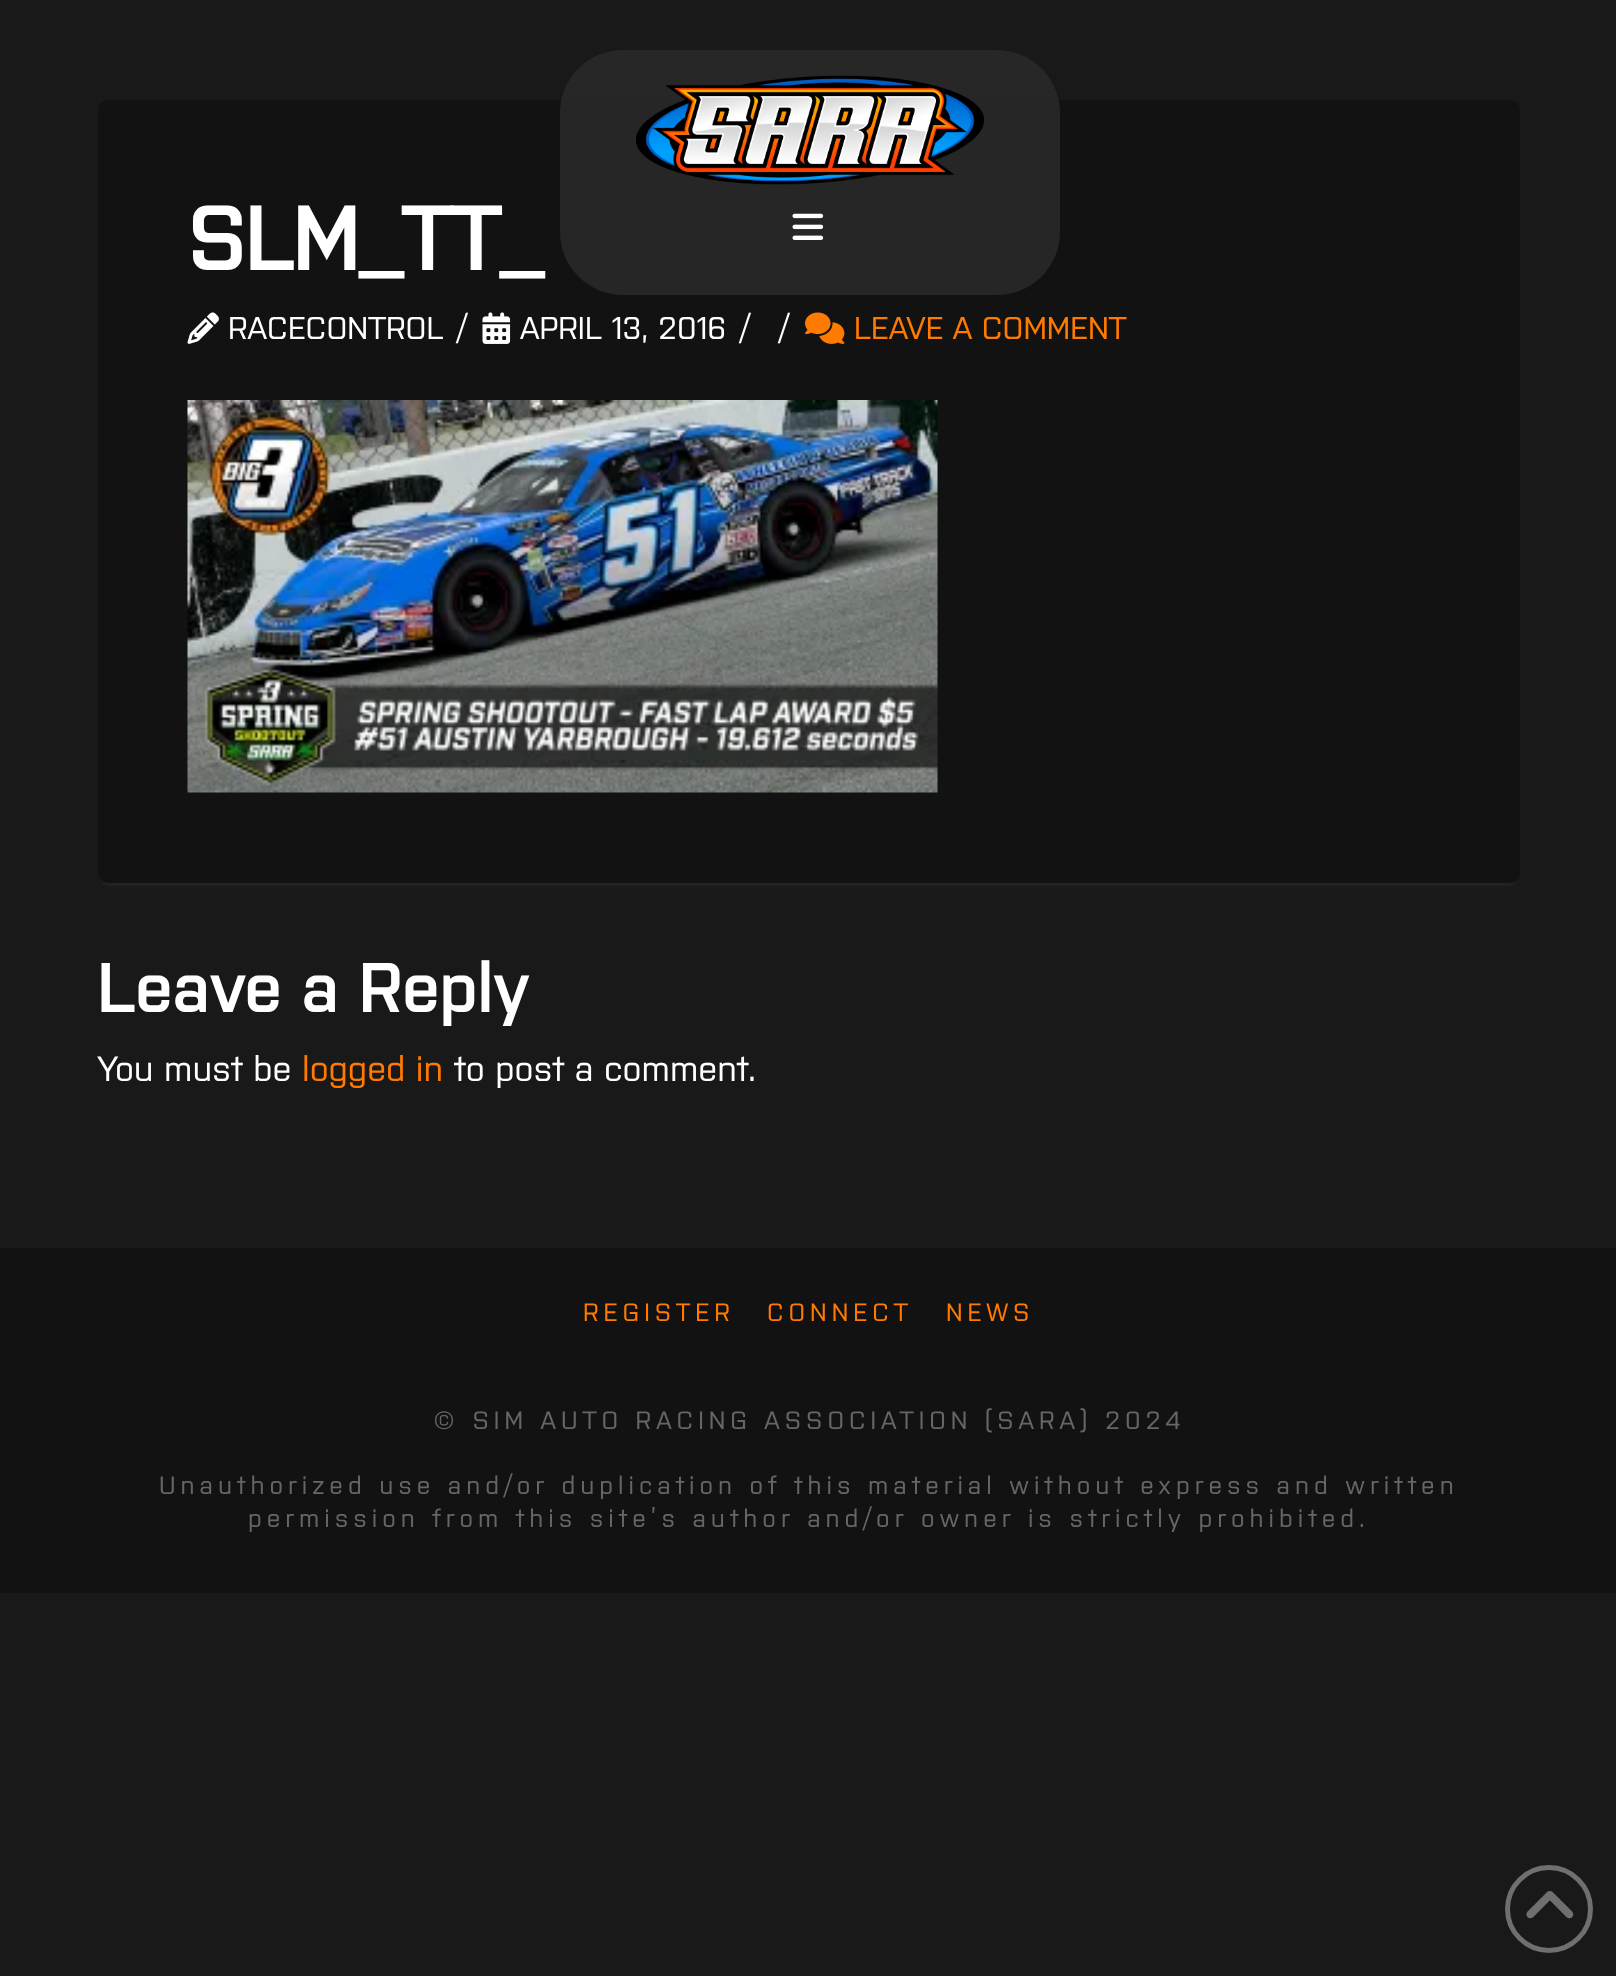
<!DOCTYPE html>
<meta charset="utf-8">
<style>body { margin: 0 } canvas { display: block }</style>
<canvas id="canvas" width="1616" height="1976"></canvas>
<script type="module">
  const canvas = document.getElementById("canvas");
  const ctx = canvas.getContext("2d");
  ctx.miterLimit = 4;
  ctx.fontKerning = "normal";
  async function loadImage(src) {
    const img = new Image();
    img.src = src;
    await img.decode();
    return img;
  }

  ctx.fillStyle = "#191919";
  ctx.fillRect(0, 0, 1616, 1976);
  ctx.fillStyle = "rgba(255, 255, 255, 0.07)";
  ctx.filter = "blur(2.5px)";
  ctx.beginPath();
  ctx.roundRect(103, 113, 1412, 772, 5);
  ctx.fill();
  ctx.filter = "none";
  ctx.fillStyle = "#121212";
  ctx.beginPath();
  ctx.roundRect(98, 100, 1422, 783, 10);
  ctx.fill();
  ctx.fillStyle = "rgba(42, 42, 42, 0.85)";
  ctx.beginPath();
  ctx.roundRect(560, 50, 500, 245, 63);
  ctx.fill();
  ctx.drawImage(await loadImage("img1.png"), 636, 75, 348, 110);
  ctx.drawImage(await loadImage("img2.png"), 792, 213, 32, 27);
  ctx.letterSpacing = "-3.25px";
  ctx.font = "600 92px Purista";
  ctx.fillStyle = "#ffffff";
  ctx.fillText("SLM_TT_", 187, 270);
  ctx.drawImage(await loadImage("img3.png"), 187, 312, 32, 32);
  ctx.letterSpacing = "0px";
  ctx.font = "31.5px Purista";
  ctx.fillText("RACECONTROL", 228, 339);
  ctx.fillText("/", 457, 339);
  ctx.drawImage(await loadImage("img4.png"), 482, 312, 29, 32);
  ctx.fillText("APRIL 13, 2016", 520, 339);
  ctx.fillText("/", 740, 339);
  ctx.fillText("/", 779, 339);
  ctx.drawImage(await loadImage("img5.png"), 805, 312, 40, 32);
  ctx.fillStyle = "#ff7a00";
  ctx.fillText("LEAVE A COMMENT", 854, 339);
  ctx.drawImage(await loadImage("img6.png"), 187, 400, 751, 393);
  ctx.letterSpacing = "-1px";
  ctx.font = "600 70px Purista";
  ctx.fillStyle = "#ffffff";
  ctx.fillText("Leave a Reply", 97, 1012);
  ctx.letterSpacing = "0px";
  ctx.font = "35px Purista";
  ctx.fillText("You must be", 97, 1081);
  ctx.fillStyle = "#ff7a00";
  ctx.fillText("logged in", 302, 1081);
  ctx.fillStyle = "#ffffff";
  ctx.fillText("to post a comment.", 454, 1081);
  ctx.fillStyle = "#121212";
  ctx.fillRect(0, 1248, 1616, 345);
  ctx.letterSpacing = "5px";
  ctx.font = "25px Purista";
  ctx.fillStyle = "#ff7a00";
  ctx.fillText("REGISTER", 583, 1321);
  ctx.fillText("CONNECT", 767, 1321);
  ctx.fillText("NEWS", 946, 1321);
  ctx.fillStyle = "#666666";
  ctx.fillText("© SIM AUTO RACING ASSOCIATION (SARA) 2024", 433, 1429);
  ctx.fillText("Unauthorized use and/or duplication of this material without express and written", 159, 1494);
  ctx.fillText("permission from this site’s author and/or owner is strictly prohibited.", 248, 1527);
  ctx.beginPath();
  ctx.arc(1549, 1909, 41.5, 0, Math.PI * 2);
  ctx.strokeStyle = "#6f6f6f";
  ctx.lineWidth = 5;
  ctx.stroke();
  ctx.drawImage(await loadImage("img7.png"), 1526, 1891, 48, 28);
</script>
